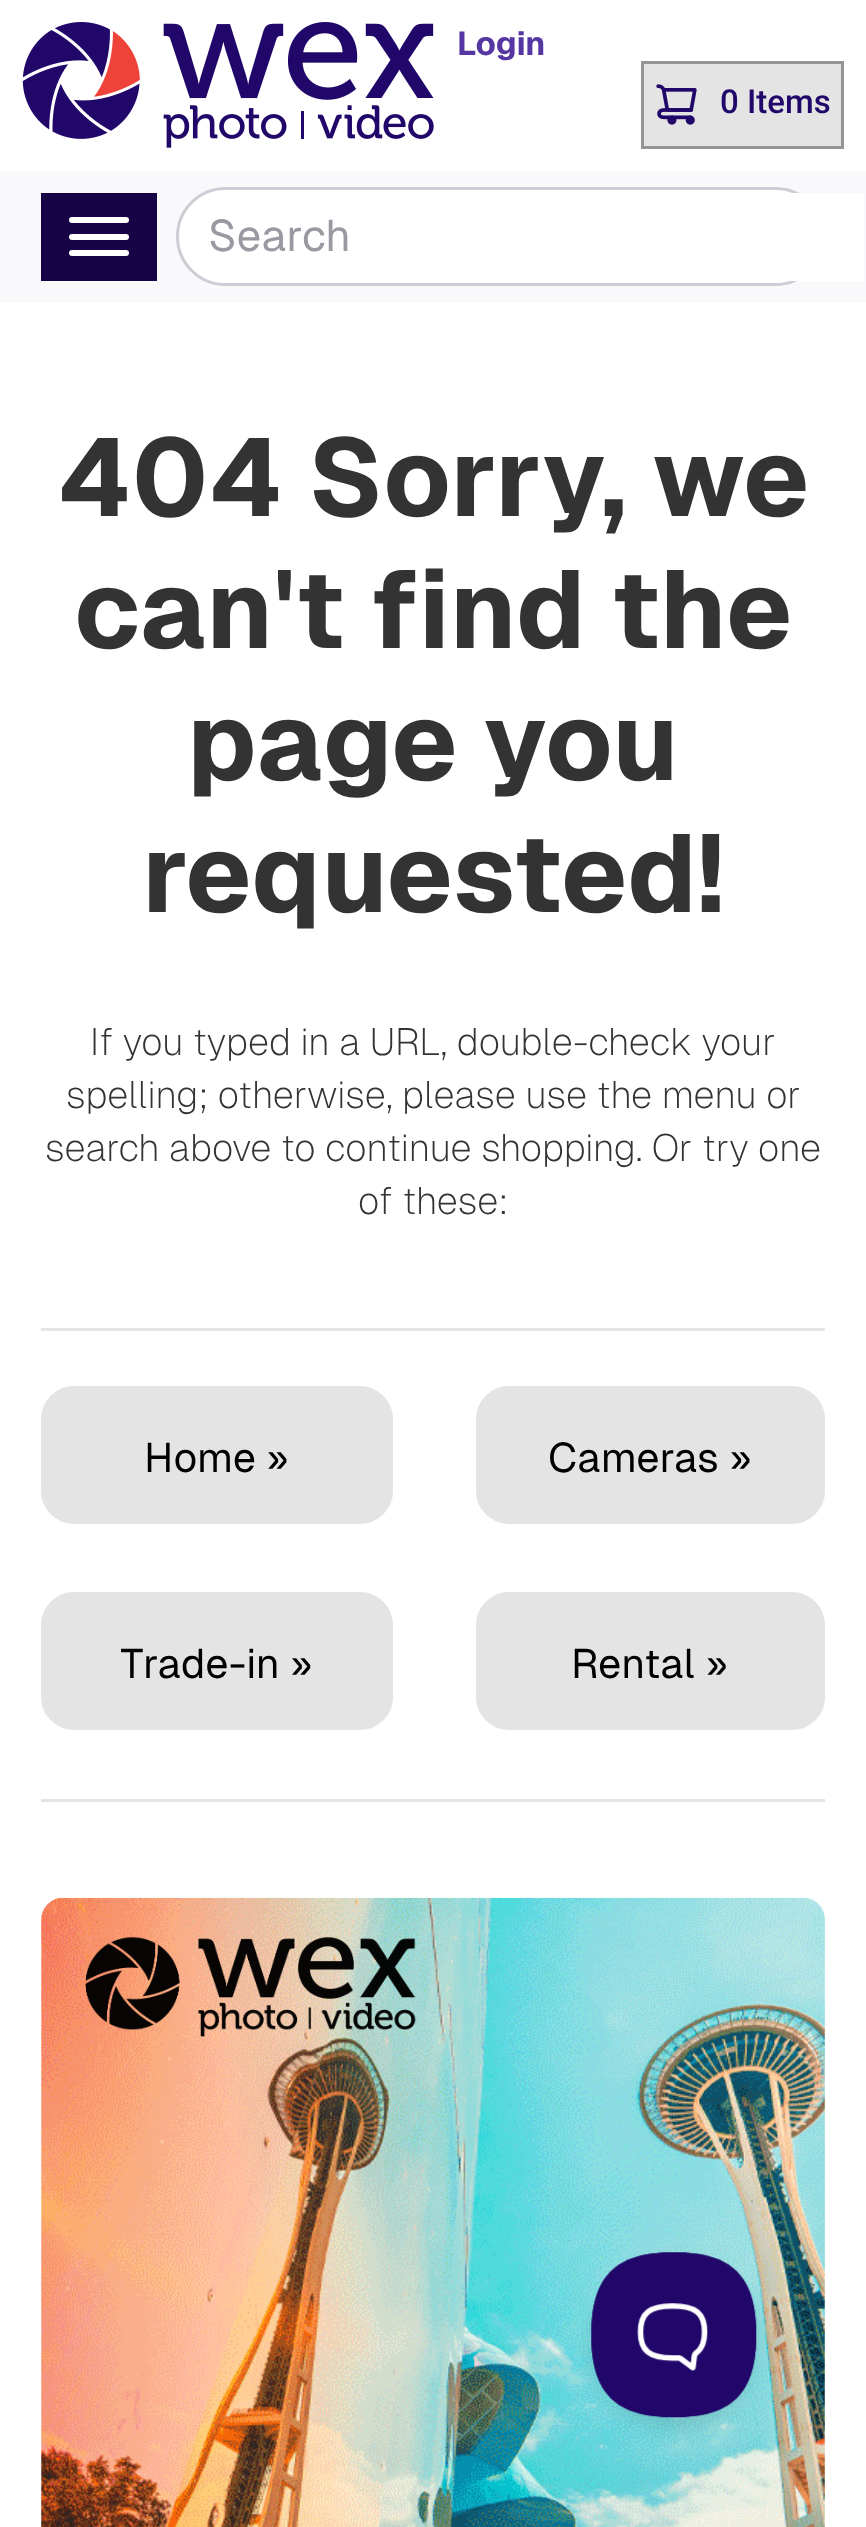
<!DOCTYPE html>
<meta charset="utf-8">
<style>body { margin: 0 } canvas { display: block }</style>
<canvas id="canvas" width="866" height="2527"></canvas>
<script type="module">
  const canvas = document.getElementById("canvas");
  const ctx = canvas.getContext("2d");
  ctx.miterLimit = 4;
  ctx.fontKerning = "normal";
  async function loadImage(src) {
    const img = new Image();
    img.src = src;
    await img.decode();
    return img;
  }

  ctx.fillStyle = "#ffffff";
  ctx.fillRect(0, 0, 866, 2527);
  ctx.drawImage(await loadImage("img1.png"), 22, 22, 412, 126);
  ctx.font = "bold 33px Geist";
  ctx.fillStyle = "#5636a3";
  ctx.fillText("Login", 457, 55);
  ctx.fillStyle = "#f9f9fb";
  ctx.fillRect(0, 171, 866, 132);
  ctx.fillStyle = "#ffffff";
  ctx.beginPath();
  ctx.roundRect(177.5, 188.5, 646, 96, 48);
  ctx.fill();
  ctx.strokeStyle = "#d0ccd6";
  ctx.lineWidth = 3;
  ctx.stroke();
  ctx.beginPath();
  ctx.roundRect(182, 193, 682, 88, [44, 0, 0, 44]);
  ctx.fill();
  ctx.font = "44px Geist";
  ctx.fillStyle = "#9a98a0";
  ctx.fillText("Search", 208, 251);
  ctx.fillStyle = "#e4e4e4";
  ctx.beginPath();
  ctx.rect(642.5, 62.5, 200, 85);
  ctx.fill();
  ctx.strokeStyle = "#959595";
  ctx.stroke();
  ctx.drawImage(await loadImage("img2.png"), 656, 84, 41, 41);
  ctx.font = "500 33px Roboto";
  ctx.fillStyle = "#21076a";
  ctx.fillText("0 Items", 720, 113);
  ctx.fillStyle = "#160446";
  ctx.fillRect(41, 193, 116, 88);
  ctx.fillStyle = "#ffffff";
  ctx.beginPath();
  ctx.roundRect(69, 217, 60, 6, 3);
  ctx.fill();
  ctx.beginPath();
  ctx.roundRect(69, 234, 60, 6, 3);
  ctx.fill();
  ctx.beginPath();
  ctx.roundRect(69, 250, 60, 6, 3);
  ctx.fill();
  ctx.font = "bold 110px Geist";
  ctx.fillStyle = "#333333";
  ctx.fillText("404 Sorry, we", 57, 516);
  ctx.fillText("can't find the", 74, 648);
  ctx.fillText("page you", 187, 780);
  ctx.fillText("requested!", 142, 912);
  ctx.font = "200 37.95px Geist";
  ctx.fillText("If you typed in a URL, double-check your", 90, 1055);
  ctx.fillText("spelling; otherwise, please use the menu or", 66, 1108);
  ctx.fillText("search above to continue shopping. Or try one", 45, 1161);
  ctx.fillText("of these:", 358, 1214);
  ctx.fillStyle = "#e4e4e4";
  ctx.fillRect(41, 1328, 784, 3);
  ctx.fillRect(41, 1799, 784, 3);
  ctx.beginPath();
  ctx.roundRect(45, 1390, 344, 130, 29);
  ctx.fill();
  ctx.strokeStyle = "#e4e4e4";
  ctx.lineWidth = 8;
  ctx.stroke();
  ctx.font = "41.25px Geist";
  ctx.fillStyle = "#000000";
  ctx.fillText("Home »", 144, 1472);
  ctx.fillStyle = "#e4e4e4";
  ctx.beginPath();
  ctx.roundRect(480, 1390, 341, 130, 29);
  ctx.fill();
  ctx.stroke();
  ctx.fillStyle = "#000000";
  ctx.fillText("Cameras »", 548, 1472);
  ctx.fillStyle = "#e4e4e4";
  ctx.beginPath();
  ctx.roundRect(45, 1596, 344, 130, 29);
  ctx.fill();
  ctx.stroke();
  ctx.fillStyle = "#000000";
  ctx.fillText("Trade-in »", 120, 1678);
  ctx.fillStyle = "#e4e4e4";
  ctx.beginPath();
  ctx.roundRect(480, 1596, 341, 130, 29);
  ctx.fill();
  ctx.stroke();
  ctx.fillStyle = "#000000";
  ctx.fillText("Rental »", 571, 1678);
  ctx.drawImage(await loadImage("img3.png"), 41, 1897, 784, 630);
  ctx.fillStyle = "rgba(0, 0, 0, 0.1)";
  ctx.filter = "blur(9.5px)";
  ctx.beginPath();
  ctx.roundRect(591, 2263, 165, 165, 82.5);
  ctx.fill();
  ctx.filter = "none";
  ctx.drawImage(await loadImage("img4.png"), 591, 2252, 166, 166);
</script>
